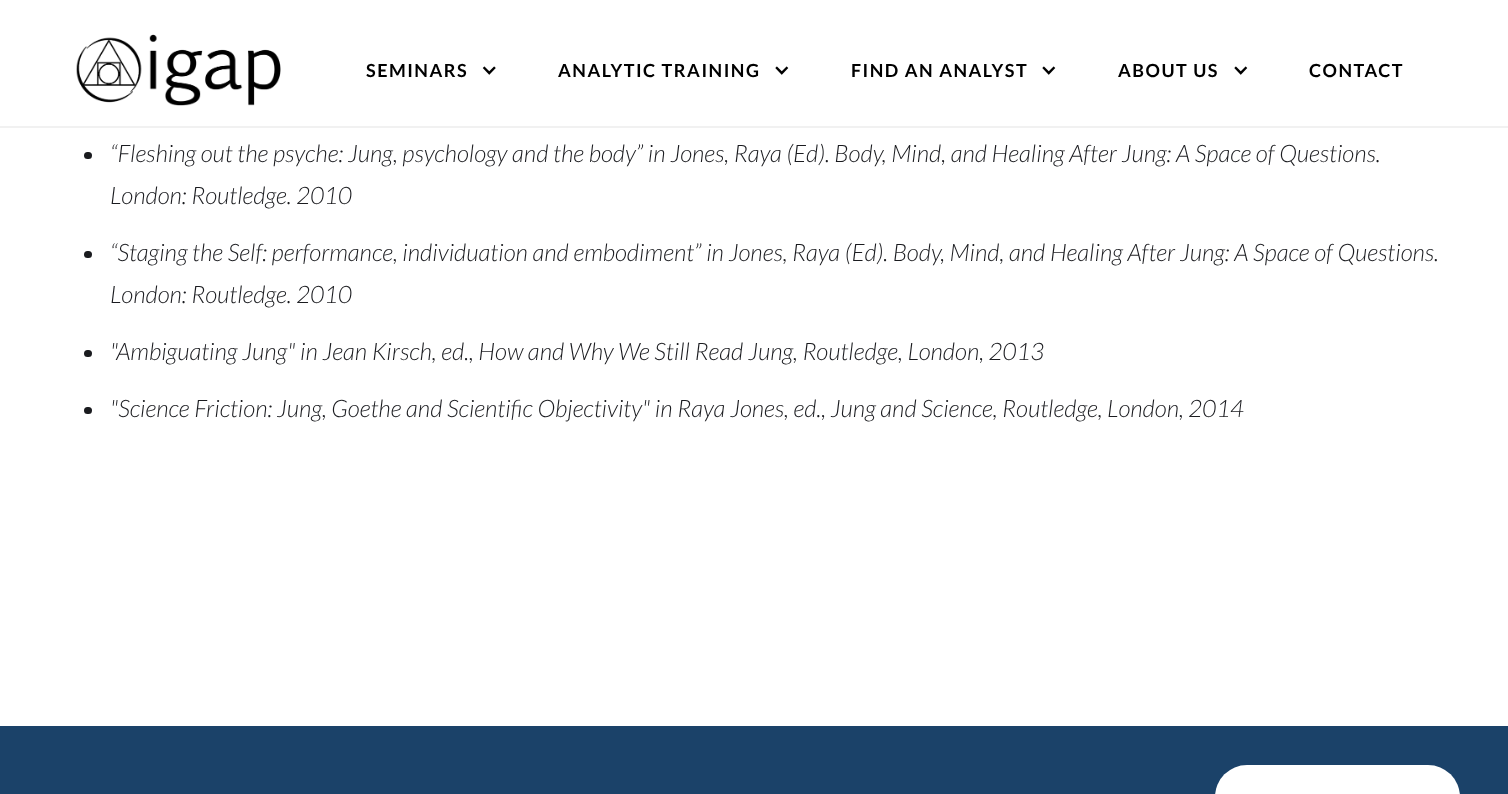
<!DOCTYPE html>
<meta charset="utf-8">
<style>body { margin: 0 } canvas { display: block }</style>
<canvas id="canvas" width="1508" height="794"></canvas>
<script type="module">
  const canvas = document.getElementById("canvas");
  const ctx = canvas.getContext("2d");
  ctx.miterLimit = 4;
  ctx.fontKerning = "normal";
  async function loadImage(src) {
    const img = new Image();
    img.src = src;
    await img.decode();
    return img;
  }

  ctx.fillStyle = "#ffffff";
  ctx.fillRect(0, 0, 1508, 794);
  ctx.fillStyle = "#f1f1f1";
  ctx.fillRect(0, 126, 1508, 2);
  ctx.drawImage(await loadImage("img1.png"), 76, 34, 205, 72);
  ctx.letterSpacing = "1.5px";
  ctx.font = "bold 18px Lato";
  ctx.fillStyle = "#000000";
  ctx.fillText("SEMINARS", 366, 77);
  ctx.drawImage(await loadImage("img2.png"), 482, 66, 14, 9);
  ctx.fillText("ANALYTIC TRAINING", 558, 77);
  ctx.drawImage(await loadImage("img3.png"), 775, 66, 14, 9);
  ctx.fillText("FIND AN ANALYST", 851, 77);
  ctx.drawImage(await loadImage("img3.png"), 1042, 66, 14, 9);
  ctx.fillText("ABOUT US", 1118, 77);
  ctx.drawImage(await loadImage("img3.png"), 1234, 66, 14, 9);
  ctx.fillText("CONTACT", 1309, 77);
  ctx.fillStyle = "#1a1b1f";
  ctx.beginPath();
  ctx.roundRect(84, 152, 8, 7, 3.5);
  ctx.fill();
  ctx.letterSpacing = "0px";
  ctx.font = "italic 300 24px Lato";
  ctx.fillText("“Fleshing out the psyche: Jung, psychology and the body” in Jones, Raya (Ed). Body, Mind, and Healing After Jung: A Space of Questions.", 110, 162);
  ctx.fillText("London: Routledge. 2010", 110, 204);
  ctx.beginPath();
  ctx.roundRect(84, 251, 8, 7, 3.5);
  ctx.fill();
  ctx.fillText("“Staging the Self: performance, individuation and embodiment” in Jones, Raya (Ed). Body, Mind, and Healing After Jung: A Space of Questions.", 110, 261);
  ctx.fillText("London: Routledge. 2010", 110, 303);
  ctx.beginPath();
  ctx.roundRect(84, 350, 8, 7, 3.5);
  ctx.fill();
  ctx.fillText("\"Ambiguating Jung\" in Jean Kirsch, ed., How and Why We Still Read Jung, Routledge, London, 2013", 110, 360);
  ctx.beginPath();
  ctx.roundRect(84, 407, 8, 7, 3.5);
  ctx.fill();
  ctx.fillText("\"Science Friction: Jung, Goethe and Scientific Objectivity\" in Raya Jones, ed., Jung and Science, Routledge, London, 2014", 110, 417);
  ctx.fillStyle = "#1b4269";
  ctx.fillRect(0, 726, 1508, 68);
  ctx.fillStyle = "#ffffff";
  ctx.beginPath();
  ctx.roundRect(1215, 765, 245, 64, 34.5);
  ctx.fill();
</script>
